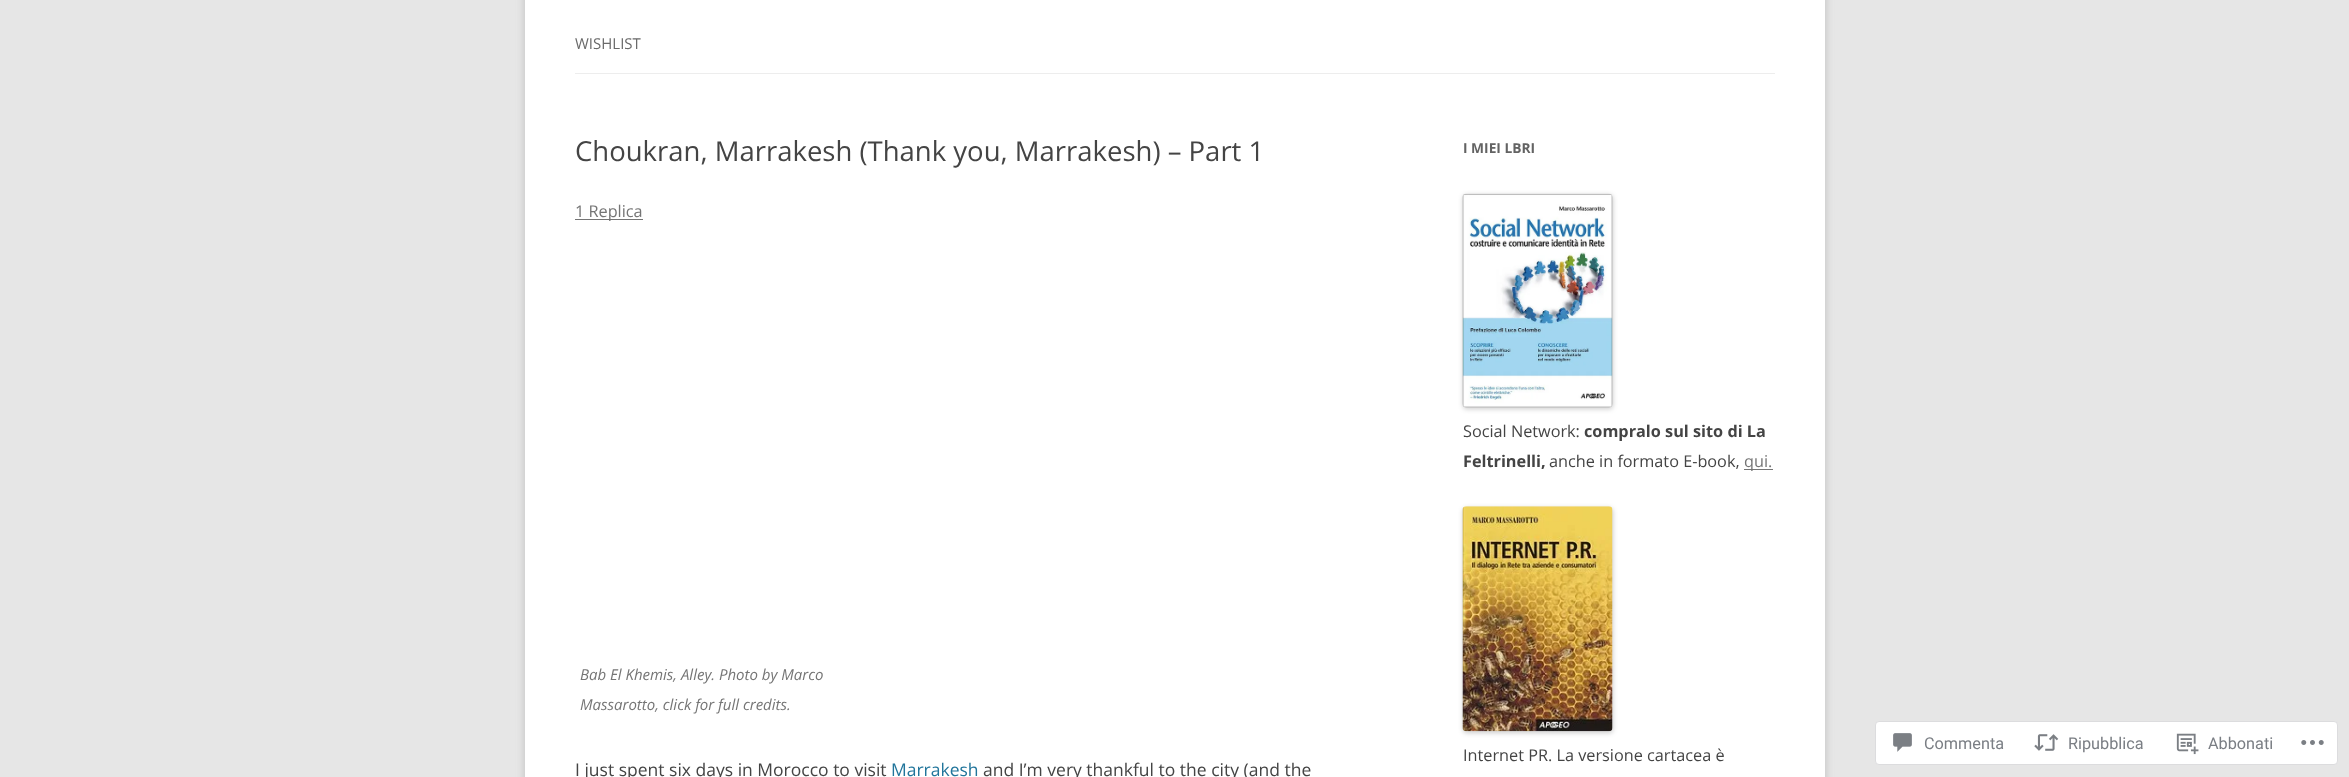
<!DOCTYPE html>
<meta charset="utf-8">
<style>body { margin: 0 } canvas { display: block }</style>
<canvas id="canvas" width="2349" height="777"></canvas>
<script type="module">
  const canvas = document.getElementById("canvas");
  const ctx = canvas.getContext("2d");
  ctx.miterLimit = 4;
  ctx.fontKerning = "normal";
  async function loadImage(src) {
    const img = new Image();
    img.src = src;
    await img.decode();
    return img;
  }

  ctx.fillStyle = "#e6e6e6";
  ctx.fillRect(0, 0, 2349, 777);
  ctx.fillStyle = "rgba(100, 100, 100, 0.3)";
  ctx.filter = "blur(4px)";
  ctx.beginPath();
  ctx.rect(525, -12, 1300, 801);
  ctx.fill();
  ctx.filter = "none";
  ctx.fillStyle = "#ffffff";
  ctx.fillRect(525, 0, 1300, 777);
  ctx.fillStyle = "#ededed";
  ctx.fillRect(575, 73, 1200, 1);
  ctx.font = "15px Open Sans";
  ctx.fillStyle = "#6a6a6a";
  ctx.fillText("WISHLIST", 575, 49);
  ctx.font = "27.5px Open Sans";
  ctx.fillStyle = "#444444";
  ctx.fillText("Choukran, Marrakesh (Thank you, Marrakesh) – Part 1", 575, 161);
  ctx.fillStyle = "#757575";
  ctx.fillRect(575, 219, 68, 1);
  ctx.font = "16.25px Open Sans";
  ctx.fillText("1 Replica", 575, 217);
  ctx.font = "italic 15px Open Sans";
  ctx.fillText("Bab El Khemis, Alley. Photo by Marco", 580, 680);
  ctx.fillText("Massarotto, click for full credits.", 580, 710);
  ctx.font = "17.5px Open Sans";
  ctx.fillStyle = "#444444";
  ctx.fillText("I just spent six days in Morocco to visit", 575, 776);
  ctx.fillStyle = "#21759b";
  ctx.fillText("Marrakesh", 891, 776);
  ctx.fillStyle = "#444444";
  ctx.fillText("and I’m very thankful to the city (and the", 983, 776);
  ctx.font = "bold 13.75px Open Sans";
  ctx.fillStyle = "#636363";
  ctx.fillText("I MIEI LBRI", 1463, 153);
  ctx.fillStyle = "rgba(0, 0, 0, 0.2)";
  ctx.filter = "blur(2.5px)";
  ctx.beginPath();
  ctx.roundRect(1463, 195, 150, 214, 4);
  ctx.fill();
  ctx.filter = "none";
  ctx.drawImage(await loadImage("img1.png"), 1462, 193, 151, 215);
  ctx.font = "16.25px Open Sans";
  ctx.fillStyle = "#444444";
  ctx.fillText("Social Network:", 1463, 437);
  ctx.font = "bold 16.25px Open Sans";
  ctx.fillText("compralo sul sito di La", 1584, 437);
  ctx.fillText("Feltrinelli,", 1463, 467);
  ctx.font = "16.25px Open Sans";
  ctx.fillText("anche in formato E-book,", 1549, 467);
  ctx.fillStyle = "#757575";
  ctx.fillRect(1744, 469, 29, 1);
  ctx.fillText("qui.", 1744, 467);
  ctx.fillStyle = "rgba(0, 0, 0, 0.2)";
  ctx.filter = "blur(2.5px)";
  ctx.beginPath();
  ctx.roundRect(1463, 508, 150, 225, 4);
  ctx.fill();
  ctx.filter = "none";
  ctx.drawImage(await loadImage("img2.png"), 1462, 506, 151, 226);
  ctx.fillStyle = "#444444";
  ctx.fillText("Internet PR. La versione cartacea è", 1463, 761);
  ctx.fillStyle = "#ffffff";
  ctx.beginPath();
  ctx.roundRect(1875.5, 721.5, 462, 43, 3.5);
  ctx.fill();
  ctx.strokeStyle = "#dcdcde";
  ctx.stroke();
  ctx.drawImage(await loadImage("img3.png"), 1893, 733, 19, 19);
  ctx.font = "16.25px Roboto";
  ctx.fillStyle = "#7a7e84";
  ctx.fillText("Commenta", 1924, 749);
  ctx.drawImage(await loadImage("img4.png"), 2034, 734, 25, 17);
  ctx.fillText("Ripubblica", 2068, 749);
  ctx.drawImage(await loadImage("img5.png"), 2176, 733, 23, 22);
  ctx.fillText("Abbonati", 2208, 749);
  ctx.drawImage(await loadImage("img6.png"), 2301, 740, 23, 5);
</script>
